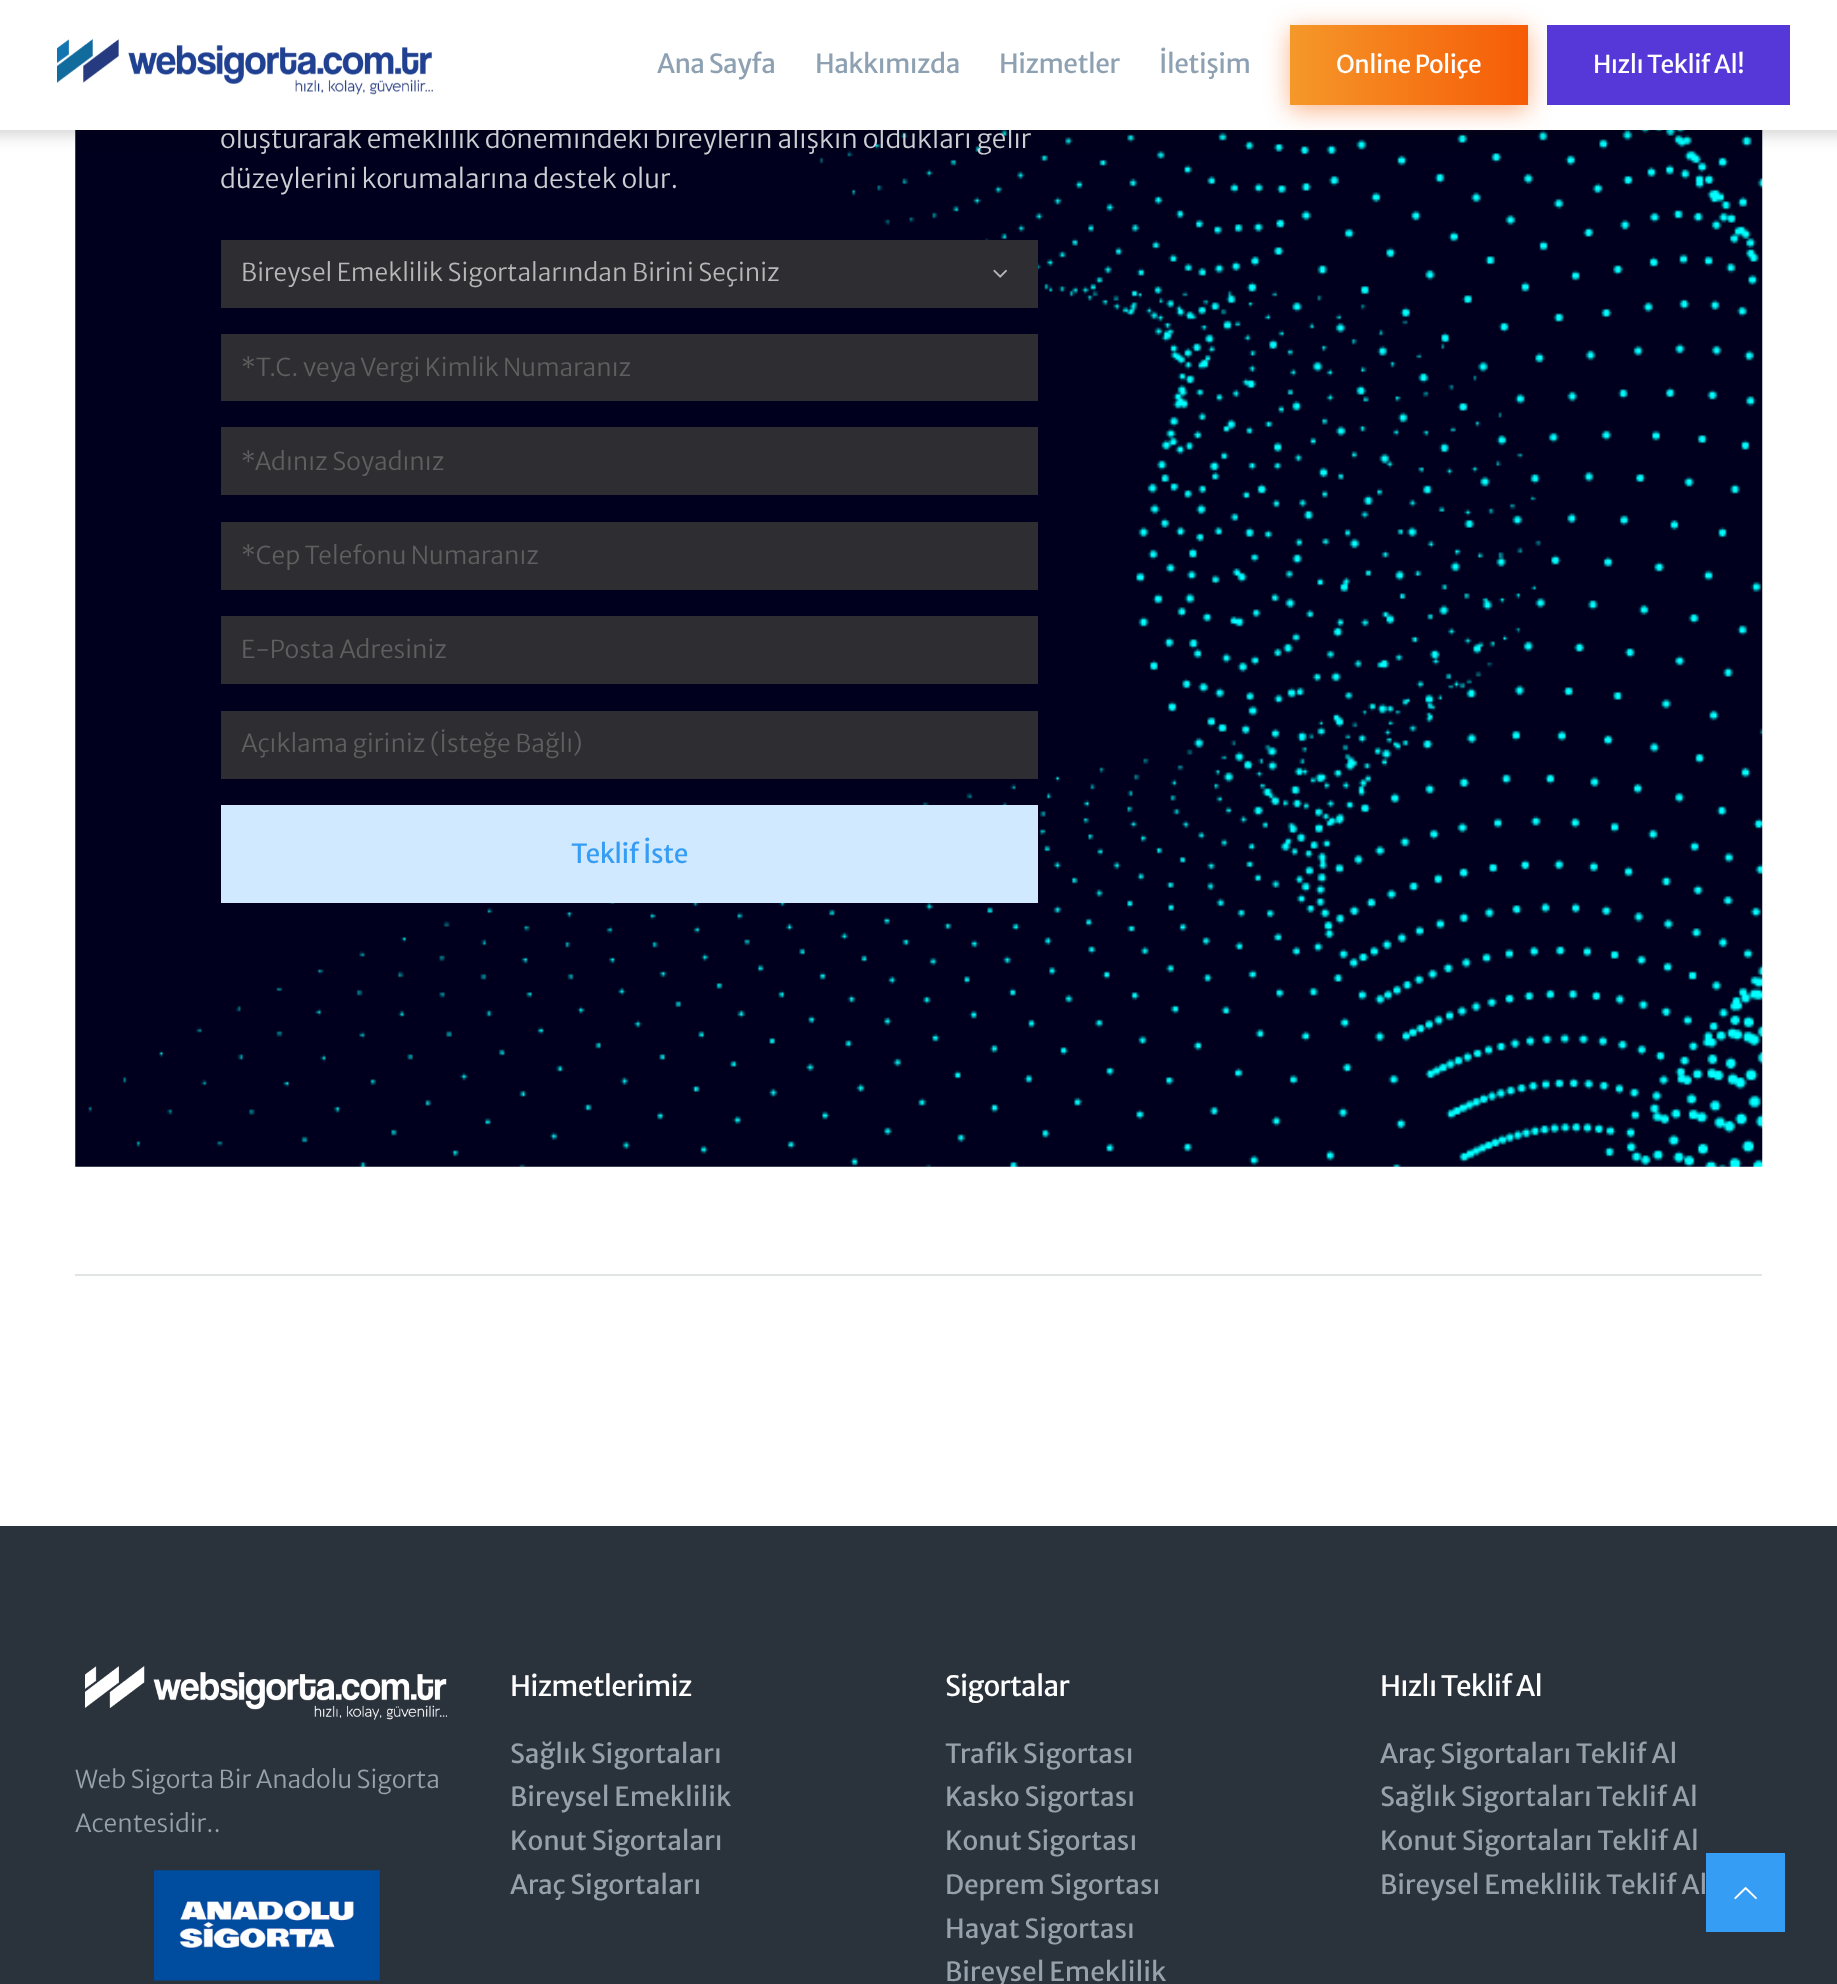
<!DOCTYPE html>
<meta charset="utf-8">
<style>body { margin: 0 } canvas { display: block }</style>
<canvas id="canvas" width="1837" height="1984"></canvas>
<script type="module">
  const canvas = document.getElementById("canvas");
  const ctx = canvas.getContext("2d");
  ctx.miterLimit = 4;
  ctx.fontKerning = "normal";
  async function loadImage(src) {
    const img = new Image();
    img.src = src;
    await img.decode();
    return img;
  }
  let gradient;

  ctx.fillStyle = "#ffffff";
  ctx.fillRect(0, 0, 1837, 1984);
  ctx.drawImage(await loadImage("img2.png"), 75, 130, 1688, 1037);
  ctx.fillStyle = "rgba(0, 0, 0, 0.2)";
  ctx.filter = "blur(9px)";
  ctx.beginPath();
  ctx.rect(-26, 4, 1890, 129);
  ctx.fill();
  ctx.filter = "none";
  ctx.font = "300 26.25px Merriweather Sans";
  ctx.fillStyle = "#ccd0d3";
  ctx.fillText("oluşturarak emeklilik dönemindeki bireylerin alışkın oldukları gelir", 220, 148);
  ctx.fillStyle = "#ffffff";
  ctx.fillRect(0, 0, 1837, 130);
  ctx.drawImage(await loadImage("img1.png"), 57, 39, 376, 56);
  ctx.letterSpacing = "-0.5px";
  ctx.font = "26.25px Merriweather Sans";
  ctx.fillStyle = "#8ea1b2";
  ctx.fillText("Ana Sayfa", 657, 73);
  ctx.fillText("Hakkımızda", 815, 73);
  ctx.fillText("Hizmetler", 999, 73);
  ctx.fillText("İletişim", 1159, 73);
  ctx.fillStyle = "rgba(246, 97, 10, 0.49)";
  ctx.filter = "blur(12px)";
  ctx.beginPath();
  ctx.rect(1290, 30, 238, 80);
  ctx.fill();
  ctx.filter = "none";
  gradient = ctx.createLinearGradient(1290, 65, 1528, 65);
  gradient.addColorStop(0, "#f5982a");
  gradient.addColorStop(1, "#f65b06");
  ctx.fillStyle = gradient;
  ctx.fillRect(1290, 25, 238, 80);
  ctx.font = "24.5px Merriweather Sans";
  ctx.fillStyle = "#ffffff";
  ctx.fillText("Online Poliçe", 1336, 73);
  ctx.fillStyle = "#5637d7";
  ctx.fillRect(1547, 25, 243, 80);
  ctx.fillStyle = "#ffffff";
  ctx.fillText("Hızlı Teklif Al!", 1593, 73);
  ctx.letterSpacing = "0px";
  ctx.font = "300 26.25px Merriweather Sans";
  ctx.fillStyle = "#ccd0d3";
  ctx.fillText("düzeylerini korumalarına destek olur.", 220, 188);
  ctx.fillStyle = "#2e2d32";
  ctx.fillRect(221, 240, 817, 68);
  ctx.font = "300 24.5px Merriweather Sans";
  ctx.fillStyle = "#b7b7b7";
  ctx.fillText("Bireysel Emeklilik Sigortalarından Birini Seçiniz", 241, 281);
  ctx.drawImage(await loadImage("img3.png"), 993, 269, 14, 9);
  ctx.fillStyle = "#2e2d32";
  ctx.fillRect(221, 334, 817, 67);
  ctx.fillStyle = "#5f5f5f";
  ctx.fillText("*T.C. veya Vergi Kimlik Numaranız", 241, 376);
  ctx.fillStyle = "#2e2d32";
  ctx.fillRect(221, 427, 817, 68);
  ctx.fillStyle = "#5f5f5f";
  ctx.fillText("*Adınız Soyadınız", 241, 470);
  ctx.fillStyle = "#2e2d32";
  ctx.fillRect(221, 522, 817, 68);
  ctx.fillStyle = "#5f5f5f";
  ctx.fillText("*Cep Telefonu Numaranız", 241, 564);
  ctx.fillStyle = "#2e2d32";
  ctx.fillRect(221, 616, 817, 68);
  ctx.fillStyle = "#5f5f5f";
  ctx.fillText("E-Posta Adresiniz", 241, 658);
  ctx.fillStyle = "#2e2d32";
  ctx.fillRect(221, 711, 817, 68);
  ctx.fillStyle = "#5f5f5f";
  ctx.fillText("Açıklama giriniz (İsteğe Bağlı)", 241, 752);
  ctx.fillStyle = "#d1e9fe";
  ctx.fillRect(221, 805, 817, 98);
  ctx.letterSpacing = "-0.5px";
  ctx.font = "26.25px Merriweather Sans";
  ctx.fillStyle = "#369df5";
  ctx.fillText("Teklif İste", 571, 863);
  ctx.fillStyle = "#e1e4e5";
  ctx.fillRect(75, 1274, 1687, 2);
  ctx.fillStyle = "#2a323c";
  ctx.fillRect(0, 1526, 1837, 458);
  ctx.drawImage(await loadImage("img4.png"), 85, 1666, 363, 54);
  ctx.letterSpacing = "0px";
  ctx.font = "300 24.5px Merriweather Sans";
  ctx.fillStyle = "#96a1ab";
  ctx.fillText("Web Sigorta Bir Anadolu Sigorta", 75, 1788);
  ctx.fillText("Acentesidir..", 75, 1832);
  ctx.drawImage(await loadImage("img5.png"), 154, 1870, 226, 111);
  ctx.letterSpacing = "-0.75px";
  ctx.font = "28px Merriweather Sans";
  ctx.fillStyle = "#ffffff";
  ctx.fillText("Hizmetlerimiz", 510, 1696);
  ctx.letterSpacing = "0px";
  ctx.font = "26.25px Merriweather Sans";
  ctx.fillStyle = "#96a1ab";
  ctx.fillText("Sağlık Sigortaları", 510, 1763);
  ctx.fillText("Bireysel Emeklilik", 510, 1806);
  ctx.fillText("Konut Sigortaları", 510, 1850);
  ctx.fillText("Araç Sigortaları", 510, 1894);
  ctx.letterSpacing = "-0.75px";
  ctx.font = "28px Merriweather Sans";
  ctx.fillStyle = "#ffffff";
  ctx.fillText("Sigortalar", 945, 1696);
  ctx.letterSpacing = "0px";
  ctx.font = "26.25px Merriweather Sans";
  ctx.fillStyle = "#96a1ab";
  ctx.fillText("Trafik Sigortası", 945, 1763);
  ctx.fillText("Kasko Sigortası", 945, 1806);
  ctx.fillText("Konut Sigortası", 945, 1850);
  ctx.fillText("Deprem Sigortası", 945, 1894);
  ctx.fillText("Hayat Sigortası", 945, 1938);
  ctx.fillText("Bireysel Emeklilik", 945, 1981);
  ctx.letterSpacing = "-0.75px";
  ctx.font = "28px Merriweather Sans";
  ctx.fillStyle = "#ffffff";
  ctx.fillText("Hızlı Teklif Al", 1380, 1696);
  ctx.letterSpacing = "0px";
  ctx.font = "26.25px Merriweather Sans";
  ctx.fillStyle = "#96a1ab";
  ctx.fillText("Araç Sigortaları Teklif Al", 1380, 1763);
  ctx.fillText("Sağlık Sigortaları Teklif Al", 1380, 1806);
  ctx.fillText("Konut Sigortaları Teklif Al", 1380, 1850);
  ctx.fillText("Bireysel Emeklilik Teklif Al", 1380, 1894);
  ctx.fillStyle = "#369df5";
  ctx.fillRect(1706, 1853, 79, 79);
  ctx.drawImage(await loadImage("img6.png"), 1734, 1887, 23, 13);
</script>
